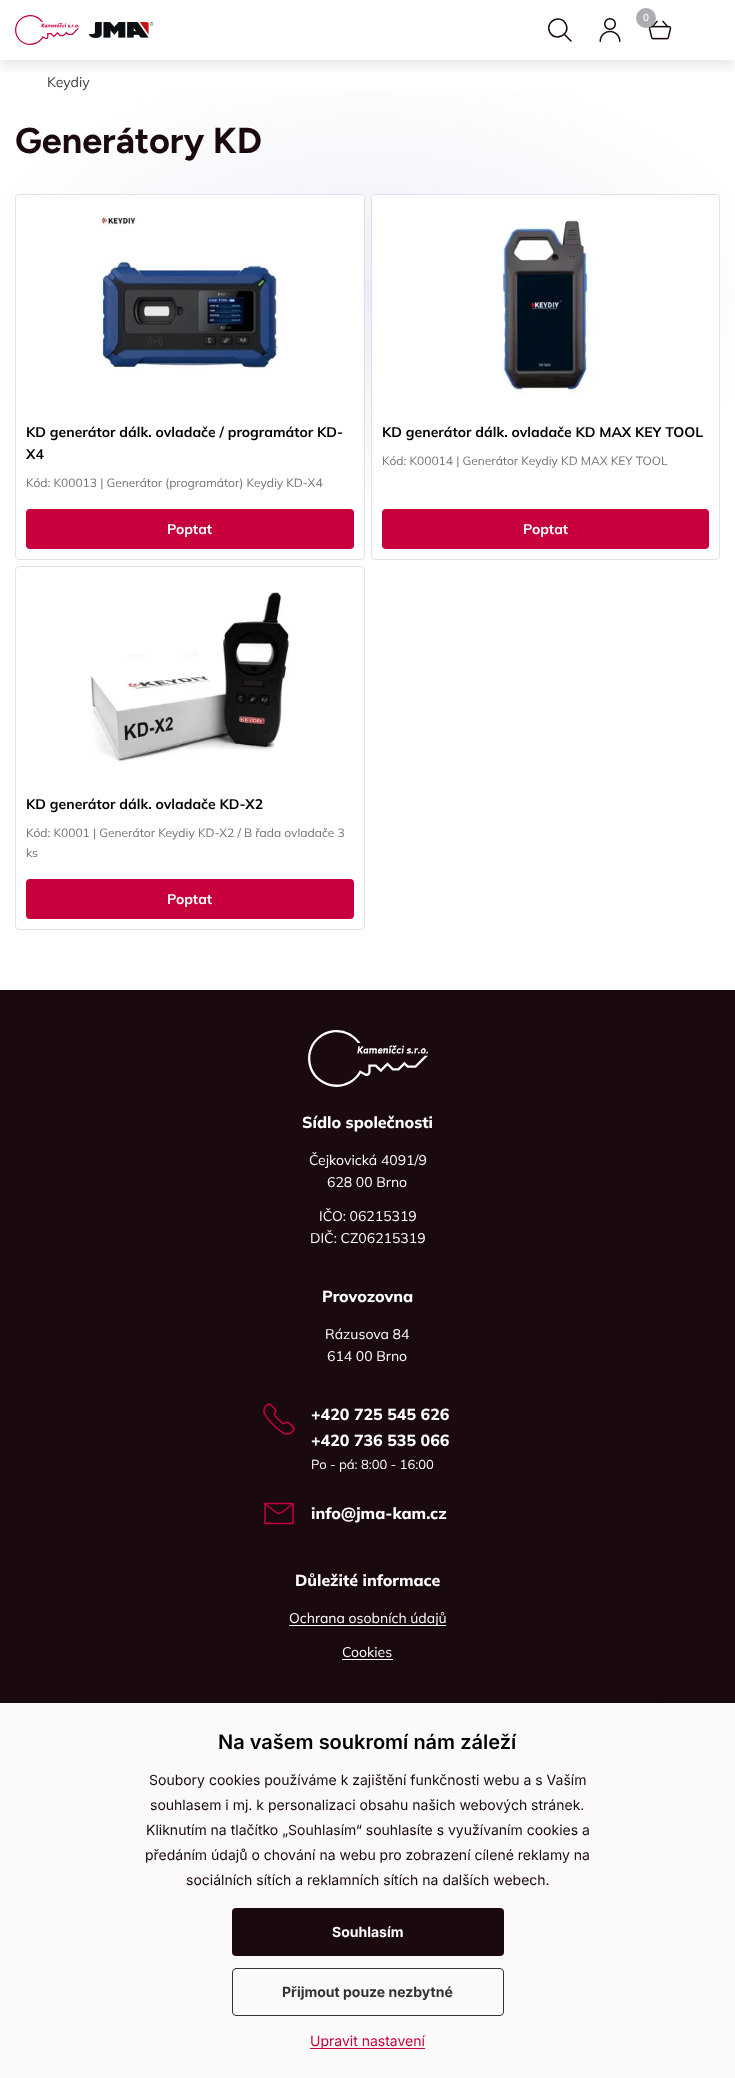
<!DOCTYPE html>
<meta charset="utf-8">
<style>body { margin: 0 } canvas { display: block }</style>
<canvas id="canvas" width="735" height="2078"></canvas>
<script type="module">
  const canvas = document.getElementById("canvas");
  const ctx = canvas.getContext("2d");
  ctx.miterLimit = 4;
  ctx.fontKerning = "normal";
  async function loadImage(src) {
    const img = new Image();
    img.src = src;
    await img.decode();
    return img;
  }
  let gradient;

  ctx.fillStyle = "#ffffff";
  ctx.fillRect(0, 0, 735, 2078);
  ctx.save();
  ctx.beginPath();
  ctx.rect(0, 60, 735, 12);
  ctx.clip();
  ctx.fillStyle = "rgba(0, 0, 0, 0.12)";
  ctx.filter = "blur(8px)";
  ctx.beginPath();
  ctx.rect(0, 4, 735, 60);
  ctx.fill();
  ctx.filter = "none";
  ctx.restore();
  ctx.drawImage(await loadImage("img1.png"), 15, 15, 64, 30);
  ctx.drawImage(await loadImage("img2.png"), 89, 22, 64, 16);
  ctx.beginPath();
  ctx.moveTo(549.5, 31.5);
  ctx.bezierCurveTo(554, 42.5, 571, 35, 566, 24.5);
  ctx.bezierCurveTo(561.5, 13.5, 545, 20.5, 549.5, 31.5);
  ctx.closePath();
  ctx.moveTo(564, 34);
  ctx.lineTo(571, 41);
  ctx.strokeStyle = "#1a090e";
  ctx.lineWidth = 1.5;
  ctx.lineCap = "round";
  ctx.lineJoin = "round";
  ctx.stroke();
  ctx.drawImage(await loadImage("img3.png"), 599, 18, 22, 24);
  ctx.drawImage(await loadImage("img4.png"), 648, 20, 24, 20);
  ctx.fillStyle = "#abadb2";
  ctx.beginPath();
  ctx.arc(646, 18, 10, 0, Math.PI * 2);
  ctx.fill();
  ctx.font = "200 10px 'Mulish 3'";
  ctx.fillStyle = "#ffffff";
  ctx.fillText("0", 643, 21);
  gradient = ctx.createRadialGradient(368, 531.74, 0, 368, 531.74, 429);
  gradient.addColorStop(0, "#ededf8");
  gradient.addColorStop(1, "#ffffff");
  ctx.fillStyle = gradient;
  ctx.beginPath();
  ctx.rect(0, 90, 735, 410);
  ctx.save();
  ctx.clip();
  ctx.scale(1, 238 / 429);
  ctx.fillRect(0, 0, 735, 3746);
  ctx.restore();
  ctx.font = "200 14px Mulish";
  ctx.fillStyle = "#3b3c3e";
  ctx.fillText("Keydiy", 47, 87);
  ctx.font = "300 36px Figtree";
  ctx.fillStyle = "#1a090e";
  ctx.fillText("Generátory KD", 15, 153);
  ctx.fillStyle = "#ffffff";
  ctx.beginPath();
  ctx.roundRect(15.5, 194.5, 349, 365, 3.5);
  ctx.fill();
  ctx.strokeStyle = "#e0e3e9";
  ctx.lineWidth = 1;
  ctx.lineJoin = "miter";
  ctx.stroke();
  ctx.drawImage(await loadImage("img5.png"), 98, 216, 184, 157);
  ctx.font = "200 14px 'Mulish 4'";
  ctx.fillStyle = "#000000";
  ctx.fillText("KD generátor dálk. ovladače / programátor KD-", 26, 437);
  ctx.fillText("X4", 26, 459);
  ctx.font = "200 12px Mulish";
  ctx.fillStyle = "#727377";
  ctx.fillText("Kód: K00013 | Generátor (programátor) Keydiy KD-X4", 26, 487);
  ctx.fillStyle = "#c7003d";
  ctx.beginPath();
  ctx.roundRect(26, 509, 328, 40, 4);
  ctx.fill();
  ctx.font = "200 14px 'Mulish 4'";
  ctx.fillStyle = "#ffffff";
  ctx.fillText("Poptat", 167, 534);
  ctx.beginPath();
  ctx.roundRect(371.5, 194.5, 348, 365, 3.5);
  ctx.fill();
  ctx.stroke();
  ctx.drawImage(await loadImage("img6.png"), 502, 219, 92, 176);
  ctx.fillStyle = "#000000";
  ctx.fillText("KD generátor dálk. ovladače KD MAX KEY TOOL", 382, 437);
  ctx.font = "200 12px Mulish";
  ctx.fillStyle = "#727377";
  ctx.fillText("Kód: K00014 | Generátor Keydiy KD MAX KEY TOOL", 382, 465);
  ctx.fillStyle = "#c7003d";
  ctx.beginPath();
  ctx.roundRect(382, 509, 327, 40, 4);
  ctx.fill();
  ctx.font = "200 14px 'Mulish 4'";
  ctx.fillStyle = "#ffffff";
  ctx.fillText("Poptat", 523, 534);
  ctx.beginPath();
  ctx.roundRect(15.5, 566.5, 349, 363, 3.5);
  ctx.stroke();
  ctx.drawImage(await loadImage("img7.png"), 90, 592, 200, 171);
  ctx.fillStyle = "#000000";
  ctx.fillText("KD generátor dálk. ovladače KD-X2", 26, 809);
  ctx.font = "200 12px Mulish";
  ctx.fillStyle = "#727377";
  ctx.fillText("Kód: K0001 | Generátor Keydiy KD-X2 / B řada ovladače 3", 26, 837);
  ctx.fillText("ks", 26, 857);
  ctx.fillStyle = "#c7003d";
  ctx.beginPath();
  ctx.roundRect(26, 879, 328, 40, 4);
  ctx.fill();
  ctx.font = "200 14px 'Mulish 4'";
  ctx.fillStyle = "#ffffff";
  ctx.fillText("Poptat", 167, 904);
  ctx.fillStyle = "#1a090e";
  ctx.fillRect(0, 990, 735, 713);
  ctx.drawImage(await loadImage("img8.png"), 308, 1030, 120, 57);
  ctx.font = "200 16px 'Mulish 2'";
  ctx.fillStyle = "#ffffff";
  ctx.fillText("Sídlo společnosti", 302, 1128);
  ctx.font = "200 14px Mulish";
  ctx.fillText("Čejkovická 4091/9", 309, 1165);
  ctx.fillText("628 00 Brno", 327, 1187);
  ctx.fillText("IČO: 06215319", 319, 1221);
  ctx.fillText("DIČ: CZ06215319", 310, 1243);
  ctx.font = "200 16px 'Mulish 2'";
  ctx.fillText("Provozovna", 322, 1302);
  ctx.font = "200 14px Mulish";
  ctx.fillText("Rázusova 84", 325, 1339);
  ctx.fillText("614 00 Brno", 327, 1361);
  ctx.drawImage(await loadImage("img9.png"), 263, 1403, 32, 32);
  ctx.font = "200 16px 'Mulish 2'";
  ctx.fillText("+420 725 545 626", 311, 1420);
  ctx.fillText("+420 736 535 066", 311, 1446);
  ctx.font = "200 13px Mulish";
  ctx.fillText("Po - pá: 8:00 - 16:00", 311, 1469);
  ctx.beginPath();
  ctx.moveTo(265, 1503.5);
  ctx.lineTo(293, 1503.5);
  ctx.lineTo(293, 1523.5);
  ctx.lineTo(265, 1523.5);
  ctx.closePath();
  ctx.moveTo(292.5, 1504);
  ctx.bezierCurveTo(276.5, 1516.5, 281.5, 1516.5, 265.5, 1504);
  ctx.strokeStyle = "#c7003d";
  ctx.lineWidth = 1.5;
  ctx.lineJoin = "round";
  ctx.stroke();
  ctx.font = "200 16px 'Mulish 2'";
  ctx.fillText("info@jma-kam.cz", 311, 1519);
  ctx.fillText("Důležité informace", 295, 1586);
  ctx.fillRect(289, 1625, 157, 1);
  ctx.font = "200 14px Mulish";
  ctx.fillText("Ochrana osobních údajů", 289, 1623);
  ctx.fillText("Cookies", 342, 1657);
  ctx.fillRect(342, 1659, 51, 1);
  ctx.fillStyle = "rgba(0, 0, 0, 0.08)";
  ctx.filter = "blur(40px)";
  ctx.beginPath();
  ctx.rect(0, 1703, 735, 375);
  ctx.fill();
  ctx.filter = "none";
  ctx.fillStyle = "#fcfaf8";
  ctx.fillRect(0, 1703, 735, 375);
  ctx.font = "600 20px Inter";
  ctx.fillStyle = "#000000";
  ctx.fillText("Na vašem soukromí nám záleží", 218, 1749);
  ctx.font = "14px Inter";
  ctx.fillStyle = "#1a090e";
  ctx.fillText("Soubory cookies používáme k zajištění funkčnosti webu a s Vaším", 149, 1785);
  ctx.fillText("souhlasem i mj. k personalizaci obsahu našich webových stránek.", 150, 1810);
  ctx.fillText("Kliknutím na tlačítko „Souhlasím“ souhlasíte s využívaním cookies a", 146, 1835);
  ctx.fillText("předáním údajů o chování na webu pro zobrazení cílené reklamy na", 145, 1860);
  ctx.fillText("sociálních sítích a reklamních sítích na dalších webech.", 186, 1885);
  ctx.beginPath();
  ctx.roundRect(232, 1908, 272, 48, 4);
  ctx.fill();
  ctx.font = "bold 14px Inter";
  ctx.fillStyle = "#ffffff";
  ctx.fillText("Souhlasím", 332, 1937);
  ctx.beginPath();
  ctx.roundRect(232.5, 1968.5, 271, 47, 3.5);
  ctx.strokeStyle = "#303236";
  ctx.lineWidth = 1;
  ctx.lineJoin = "miter";
  ctx.stroke();
  ctx.fillStyle = "#303236";
  ctx.fillText("Přijmout pouze nezbytné", 282, 1997);
  ctx.fillStyle = "#c7003d";
  ctx.fillRect(310, 2048, 115, 1);
  ctx.font = "14px Inter";
  ctx.fillText("Upravit nastavení", 310, 2046);
</script>
